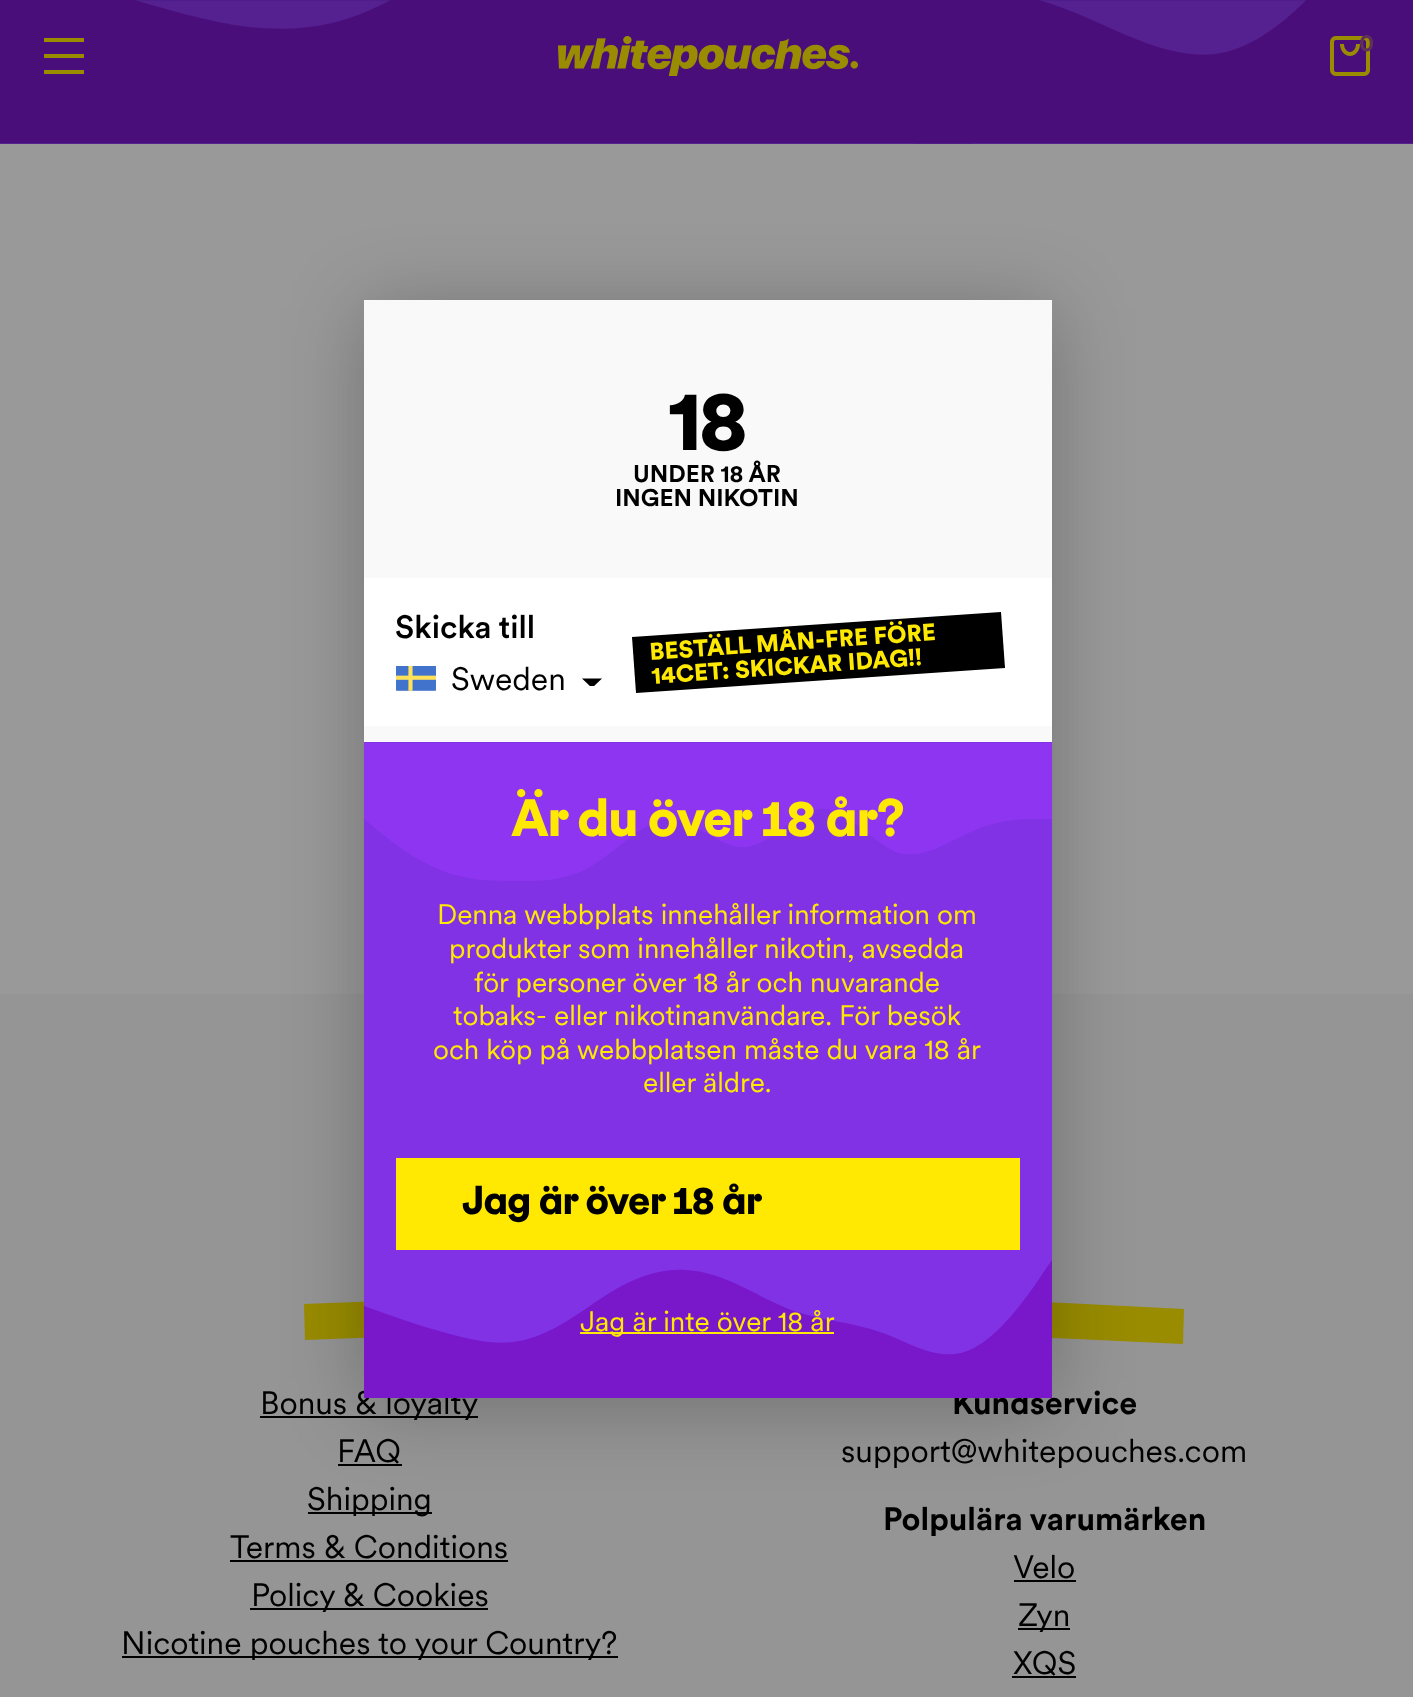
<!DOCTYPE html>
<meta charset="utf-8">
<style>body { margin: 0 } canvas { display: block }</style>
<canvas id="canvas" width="1413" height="1697"></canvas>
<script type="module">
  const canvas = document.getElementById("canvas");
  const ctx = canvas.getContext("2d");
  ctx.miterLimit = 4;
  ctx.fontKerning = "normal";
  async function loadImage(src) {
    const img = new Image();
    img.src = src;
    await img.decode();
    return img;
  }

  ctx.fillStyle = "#999999";
  ctx.fillRect(0, 0, 1413, 1697);
  ctx.fillStyle = "#4d1e89";
  ctx.fillRect(134, 0, 1173, 144);
  ctx.save();
  ctx.beginPath();
  ctx.rect(0, 0, 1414, 144);
  ctx.clip();
  ctx.fillStyle = "#552090";
  ctx.beginPath();
  ctx.moveTo(0, 158);
  ctx.lineTo(26, 179);
  ctx.bezierCurveTo(52, 200, 105, 241, 157, 263);
  ctx.bezierCurveTo(209, 284, 262, 284, 314, 284);
  ctx.bezierCurveTo(367, 284, 419, 284, 471, 252);
  ctx.bezierCurveTo(524, 221, 576, 158, 628, 158);
  ctx.bezierCurveTo(681, 158, 734, 221, 786, 216);
  ctx.bezierCurveTo(838, 210, 891, 137, 943, 137);
  ctx.bezierCurveTo(995, 137, 1048, 210, 1100, 226);
  ctx.bezierCurveTo(1152, 241, 1205, 200, 1257, 179);
  ctx.bezierCurveTo(1309, 158, 1362, 158, 1387, 158);
  ctx.lineTo(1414, 158);
  ctx.lineTo(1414, 1);
  ctx.lineTo(0, 1);
  ctx.closePath();
  ctx.fill();
  ctx.restore();
  ctx.fillStyle = "#490e7a";
  ctx.beginPath();
  ctx.moveTo(0, -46);
  ctx.bezierCurveTo(51, -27, 102, -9, 155, 6);
  ctx.bezierCurveTo(205, 20, 257, 34, 309, 27);
  ctx.bezierCurveTo(369, 20, 415, -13, 464, -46);
  ctx.bezierCurveTo(526, -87, 586, -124, 663, -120);
  ctx.bezierCurveTo(744, -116, 809, -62, 884, -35);
  ctx.bezierCurveTo(941, -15, 1003, -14, 1060, 7);
  ctx.bezierCurveTo(1108, 24, 1163, 60, 1215, 54);
  ctx.bezierCurveTo(1279, 46, 1337, -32, 1372, -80);
  ctx.lineTo(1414, -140);
  ctx.lineTo(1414, 143);
  ctx.lineTo(0, 143);
  ctx.closePath();
  ctx.fill();
  ctx.fillStyle = "#998c01";
  ctx.beginPath();
  ctx.moveTo(44, 70);
  ctx.lineTo(84, 70);
  ctx.lineTo(84, 74);
  ctx.lineTo(44, 74);
  ctx.closePath();
  ctx.moveTo(44, 38);
  ctx.lineTo(84, 38);
  ctx.lineTo(84, 42);
  ctx.lineTo(44, 42);
  ctx.closePath();
  ctx.moveTo(44, 54);
  ctx.lineTo(84, 54);
  ctx.lineTo(84, 58);
  ctx.lineTo(44, 58);
  ctx.closePath();
  ctx.fill();
  ctx.drawImage(await loadImage("img1.png"), 558, 36, 300, 40);
  ctx.drawImage(await loadImage("img2.png"), 1330, 36, 40, 40);
  ctx.font = "bold 24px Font";
  ctx.fillStyle = "#5f3158";
  ctx.fillText("0", 1359, 51);
  ctx.fillStyle = "#959595";
  ctx.fillRect(0, 994, 1413, 703);
  ctx.fillStyle = "#998c01";
  ctx.beginPath();
  ctx.moveTo(304, 1304);
  ctx.lineTo(434, 1299);
  ctx.lineTo(435, 1335);
  ctx.lineTo(305, 1340);
  ctx.closePath();
  ctx.fill();
  ctx.fillStyle = "#000000";
  ctx.fillRect(260, 1416, 218, 2);
  ctx.fillRect(338, 1464, 64, 2);
  ctx.fillRect(308, 1512, 124, 2);
  ctx.fillStyle = "#998c01";
  ctx.beginPath();
  ctx.moveTo(906, 1295);
  ctx.lineTo(1184, 1309);
  ctx.lineTo(1183, 1344);
  ctx.lineTo(905, 1331);
  ctx.closePath();
  ctx.fill();
  ctx.fillStyle = "rgba(0, 0, 0, 0.25)";
  ctx.filter = "blur(40px)";
  ctx.beginPath();
  ctx.rect(364, 308, 688, 1098);
  ctx.fill();
  ctx.filter = "none";
  ctx.fillStyle = "#f9f9f9";
  ctx.fillRect(364, 300, 688, 442);
  ctx.letterSpacing = "-3px";
  ctx.font = "900 85px Font";
  ctx.fillStyle = "#000000";
  ctx.fillText("18", 668, 450);
  ctx.letterSpacing = "0px";
  ctx.font = "bold 24px Font";
  ctx.fillText("UNDER 18 ÅR", 633, 482);
  ctx.fillText("INGEN NIKOTIN", 615, 506);
  ctx.fillStyle = "#ffffff";
  ctx.fillRect(364, 578, 688, 148);
  ctx.font = "500 32px Font";
  ctx.fillStyle = "#000000";
  ctx.fillText("Skicka till", 395, 638);
  ctx.drawImage(await loadImage("img3.png"), 396, 666, 40, 25);
  ctx.font = "32px Font";
  ctx.fillText("Sweden", 451, 690);
  ctx.save();
  ctx.beginPath();
  ctx.rect(582, 670, 20, 16);
  ctx.clip();
  ctx.beginPath();
  ctx.moveTo(582, 678.5);
  ctx.lineTo(592, 688);
  ctx.lineTo(602, 678.5);
  ctx.closePath();
  ctx.fill();
  ctx.restore();
  ctx.beginPath();
  ctx.moveTo(632, 637);
  ctx.lineTo(1001, 612);
  ctx.lineTo(1005, 668);
  ctx.lineTo(636, 693);
  ctx.closePath();
  ctx.fill();
  ctx.font = "900 24px Font";
  ctx.fillStyle = "#ffe902";
  ctx.save();
  ctx.translate(650, 660);
  ctx.rotate(-4 * Math.PI / 180);
  ctx.fillText("BESTÄLL MÅN-FRE FÖRE", 0, 0);
  ctx.restore();
  ctx.save();
  ctx.translate(652, 684);
  ctx.rotate(-4 * Math.PI / 180);
  ctx.fillText("14CET: SKICKAR IDAG!!", 0, 0);
  ctx.restore();
  ctx.fillStyle = "#8032e4";
  ctx.fillRect(364, 742, 688, 613);
  ctx.fillStyle = "#8d35f0";
  ctx.beginPath();
  ctx.moveTo(364, 819);
  ctx.lineTo(377, 830);
  ctx.bezierCurveTo(389, 840, 415, 860, 440, 870);
  ctx.bezierCurveTo(466, 881, 492, 881, 517, 881);
  ctx.bezierCurveTo(542, 881, 568, 881, 593, 865);
  ctx.bezierCurveTo(619, 850, 644, 819, 670, 819);
  ctx.bezierCurveTo(695, 819, 721, 850, 746, 847);
  ctx.bezierCurveTo(772, 845, 797, 809, 823, 809);
  ctx.bezierCurveTo(848, 809, 874, 845, 899, 853);
  ctx.bezierCurveTo(925, 860, 950, 840, 976, 830);
  ctx.bezierCurveTo(1001, 819, 1027, 819, 1039, 819);
  ctx.lineTo(1052, 819);
  ctx.lineTo(1052, 743);
  ctx.lineTo(364, 743);
  ctx.closePath();
  ctx.fill();
  ctx.font = "32px Font";
  ctx.fillStyle = "#000000";
  ctx.fillText("Bonus & loyalty", 260, 1414);
  ctx.font = "bold 32px Font";
  ctx.fillText("Kundservice", 952, 1414);
  ctx.fillStyle = "#7917cb";
  ctx.beginPath();
  ctx.moveTo(364, 1306);
  ctx.bezierCurveTo(389, 1315, 414, 1324, 439, 1331);
  ctx.bezierCurveTo(464, 1338, 489, 1345, 514, 1342);
  ctx.bezierCurveTo(543, 1338, 566, 1322, 590, 1306);
  ctx.bezierCurveTo(619, 1286, 649, 1268, 686, 1270);
  ctx.bezierCurveTo(726, 1272, 758, 1298, 794, 1311);
  ctx.bezierCurveTo(822, 1321, 852, 1322, 880, 1332);
  ctx.bezierCurveTo(904, 1340, 929, 1357, 955, 1354);
  ctx.bezierCurveTo(994, 1350, 1030, 1292, 1052, 1260);
  ctx.lineTo(1052, 1398);
  ctx.lineTo(364, 1398);
  ctx.closePath();
  ctx.fill();
  ctx.letterSpacing = "-1.6px";
  ctx.font = "900 52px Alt";
  ctx.fillStyle = "#ffe902";
  ctx.fillText("Är du över 18 år?", 511, 836);
  ctx.letterSpacing = "0px";
  ctx.font = "28px Font";
  ctx.fillText("Denna webbplats innehåller information om", 437, 924);
  ctx.fillText("produkter som innehåller nikotin, avsedda", 449, 958);
  ctx.fillText("för personer över 18 år och nuvarande", 474, 992);
  ctx.fillText("tobaks- eller nikotinanvändare. För besök", 453, 1025);
  ctx.fillText("och köp på webbplatsen måste du vara 18 år", 433, 1059);
  ctx.fillText("eller äldre.", 643, 1092);
  ctx.fillRect(396, 1158, 624, 92);
  ctx.letterSpacing = "-1.25px";
  ctx.font = "900 40px Alt";
  ctx.fillStyle = "#000000";
  ctx.fillText("Jag är över 18 år", 462, 1214);
  ctx.fillStyle = "#ffe902";
  ctx.fillRect(580, 1332, 254, 2);
  ctx.letterSpacing = "0px";
  ctx.font = "28px Font";
  ctx.fillText("Jag är inte över 18 år", 580, 1331);
  ctx.font = "32px Font";
  ctx.fillStyle = "#000000";
  ctx.fillText("FAQ", 337, 1462);
  ctx.fillText("Shipping", 307, 1510);
  ctx.fillText("Terms & Conditions", 230, 1558);
  ctx.fillRect(230, 1560, 278, 2);
  ctx.fillRect(250, 1608, 238, 2);
  ctx.fillText("Policy & Cookies", 251, 1606);
  ctx.fillRect(122, 1656, 496, 2);
  ctx.fillText("Nicotine pouches to your Country?", 121, 1654);
  ctx.fillText("support@whitepouches.com", 841, 1462);
  ctx.font = "bold 32px Font";
  ctx.fillText("Polpulära varumärken", 883, 1530);
  ctx.font = "32px Font";
  ctx.fillText("Velo", 1013, 1578);
  ctx.fillRect(1014, 1580, 62, 2);
  ctx.fillRect(1018, 1628, 52, 2);
  ctx.fillText("Zyn", 1018, 1626);
  ctx.fillText("XQS", 1013, 1674);
  ctx.fillRect(1012, 1676, 64, 2);
</script>
